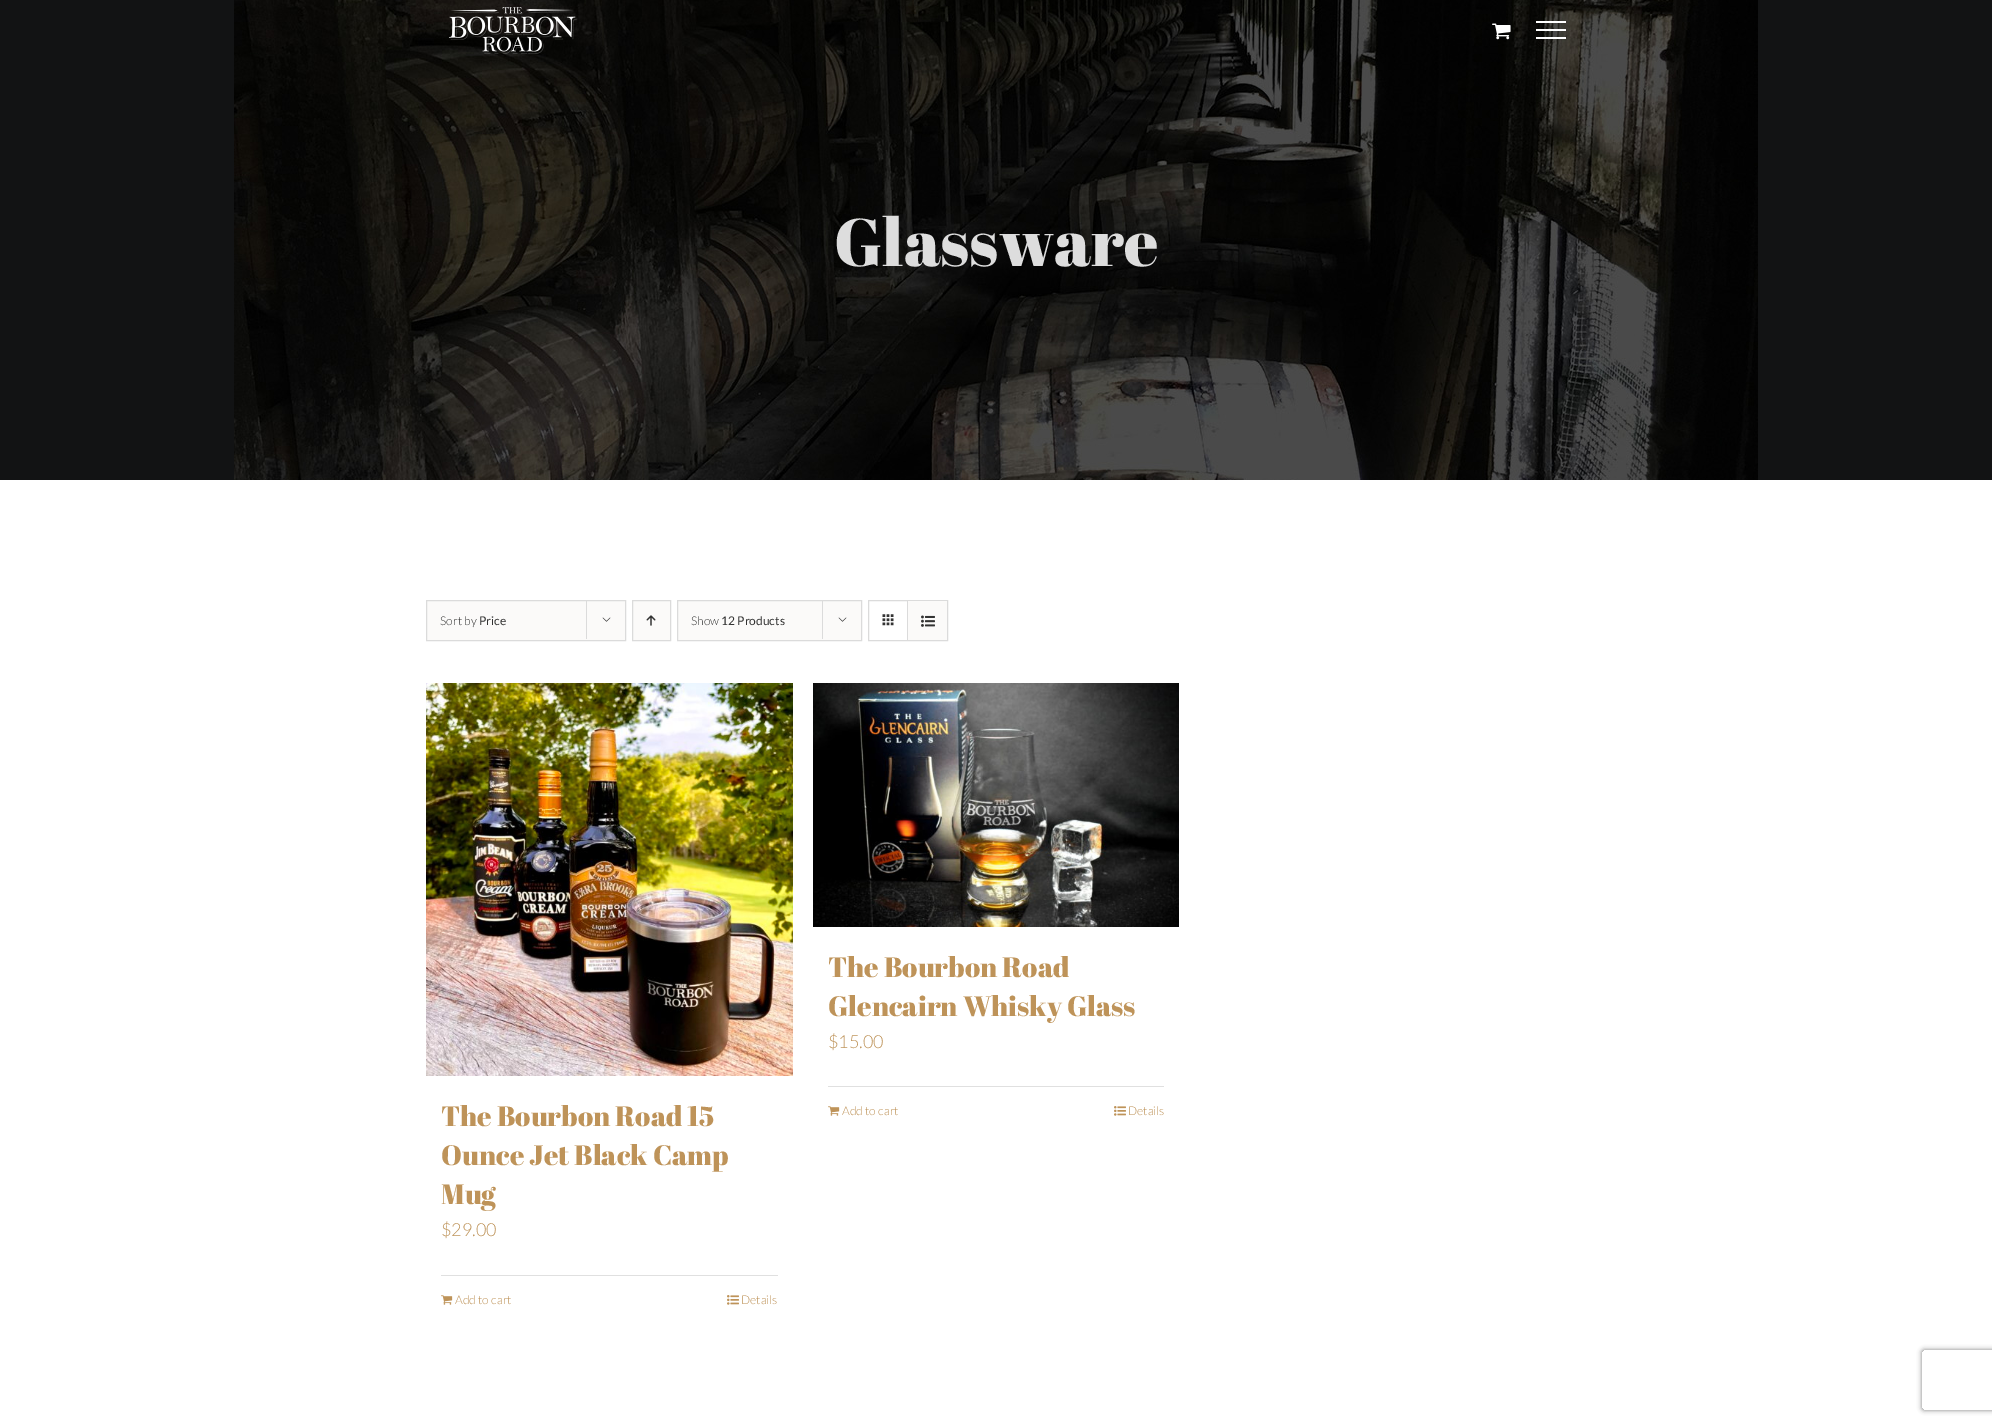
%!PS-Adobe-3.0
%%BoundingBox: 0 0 1992 1424
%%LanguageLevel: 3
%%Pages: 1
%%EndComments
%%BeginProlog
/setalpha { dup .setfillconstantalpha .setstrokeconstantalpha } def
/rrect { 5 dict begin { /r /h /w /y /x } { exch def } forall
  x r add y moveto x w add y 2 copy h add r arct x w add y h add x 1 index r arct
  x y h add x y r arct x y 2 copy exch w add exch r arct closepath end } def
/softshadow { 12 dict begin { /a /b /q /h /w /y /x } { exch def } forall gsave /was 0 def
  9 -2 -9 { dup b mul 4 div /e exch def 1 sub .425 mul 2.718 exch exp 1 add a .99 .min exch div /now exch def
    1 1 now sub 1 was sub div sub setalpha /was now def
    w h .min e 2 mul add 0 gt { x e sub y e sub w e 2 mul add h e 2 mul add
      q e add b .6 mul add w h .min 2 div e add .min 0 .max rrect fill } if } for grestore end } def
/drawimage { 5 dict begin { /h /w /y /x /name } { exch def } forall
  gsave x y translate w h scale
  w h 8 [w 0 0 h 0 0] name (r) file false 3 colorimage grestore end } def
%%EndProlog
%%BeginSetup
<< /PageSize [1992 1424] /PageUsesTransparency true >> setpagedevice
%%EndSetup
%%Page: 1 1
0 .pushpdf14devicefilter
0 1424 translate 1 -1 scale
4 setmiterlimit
1 setgray
0 0 1992 1424 rectfill
0.071 0.075 0.078 setrgbcolor
0 0 1992 480 rectfill
(images/3.raw) 234 0 1524 480 drawimage
(images/1.raw) 449 7 129 47 drawimage
(images/2.raw) 1492 23 19 17 drawimage
1 setgray
1536 21 30 2 rectfill
1536 29 30 2 rectfill
1536 37 30 2 rectfill
0.984 0.98 0.976 setrgbcolor
newpath 426.5 600.5 moveto 625.5 600.5 lineto 625.5 640.5 lineto 426.5 640.5 lineto closepath gsave fill grestore
0.859 setgray
stroke
586 600 1 39 rectfill
(images/4.raw) 602 617 9 5 drawimage
0.984 0.98 0.976 setrgbcolor
newpath 632.5 600.5 moveto 670.5 600.5 lineto 670.5 640.5 lineto 632.5 640.5 lineto closepath gsave fill grestore
0.859 setgray
stroke
(images/5.raw) 646 615 10 11 drawimage
0.984 0.98 0.976 setrgbcolor
newpath 677.5 600.5 moveto 861.5 600.5 lineto 861.5 640.5 lineto 677.5 640.5 lineto closepath gsave fill grestore
0.859 setgray
stroke
822 600 1 39 rectfill
(images/4.raw) 838 617 9 5 drawimage
868.5 600.5 79 40 rectstroke
907 601 1 39 rectfill
(images/6.raw) 882 614 12 12 drawimage
0.984 0.98 0.976 setrgbcolor
908 601 39 39 rectfill
(images/7.raw) 921 615 14 12 drawimage
(images/8.raw) 813 683 366 244 drawimage
0.878 setgray
828 1086 336 1 rectfill
(images/9.raw) 828 1106 12 10 drawimage
(images/10.raw) 1114 1106 12 10 drawimage
(images/11.raw) 426 683 367 393 drawimage
441 1275 337 1 rectfill
(images/9.raw) 441 1295 12 10 drawimage
(images/10.raw) 727 1295 12 10 drawimage
gsave
newpath 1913 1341 moveto 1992 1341 lineto 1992 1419 lineto 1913 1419 lineto closepath 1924 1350 moveto 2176 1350 lineto 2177 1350 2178 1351 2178 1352 curveto 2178 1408 lineto 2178 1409 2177 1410 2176 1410 curveto 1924 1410 lineto 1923 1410 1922 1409 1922 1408 curveto 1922 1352 lineto 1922 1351 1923 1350 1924 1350 curveto closepath eoclip newpath
0.502 setgray
1922 1350 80 60 2 2.5 1 softshadow
grestore
/AbrilFatface-Regular [67 0 0 -67 0 0] selectfont
0.867 setgray
834 266 moveto (Glassware) show
/Lato-Light [12 0 0 -12 0 0] selectfont
0.2 setgray
440 625 moveto (Sort by) show
/Lato-Regular [12 0 0 -12 0 0] selectfont
479 625 moveto (Price) show
/Lato-Light [12 0 0 -12 0 0] selectfont
691 625 moveto (Show) show
/Lato-Regular [12 0 0 -12 0 0] selectfont
721 625 moveto (12 Products) show
/AbrilFatface-Regular [28 0 0 -28 0 0] selectfont
0.745 0.576 0.349 setrgbcolor
828 977 moveto (The Bourbon Road) show
828 1016 moveto (Glencairn Whisky Glass) show
/Lato-Light [18 0 0 -18 0 0] selectfont
828 1048 moveto ($15.00) show
/Lato-Light [12 0 0 -12 0 0] selectfont
842 1115 moveto (Add to cart) show
1128 1115 moveto (Details) show
/AbrilFatface-Regular [28 0 0 -28 0 0] selectfont
441 1126 moveto (The Bourbon Road 15) show
441 1165 moveto (Ounce Jet Black Camp) show
441 1204 moveto (Mug) show
/Lato-Light [18 0 0 -18 0 0] selectfont
441 1236 moveto ($29.00) show
/Lato-Light [12 0 0 -12 0 0] selectfont
455 1304 moveto (Add to cart) show
741 1304 moveto (Details) show
.poppdf14devicefilter showpage
%%EOF
